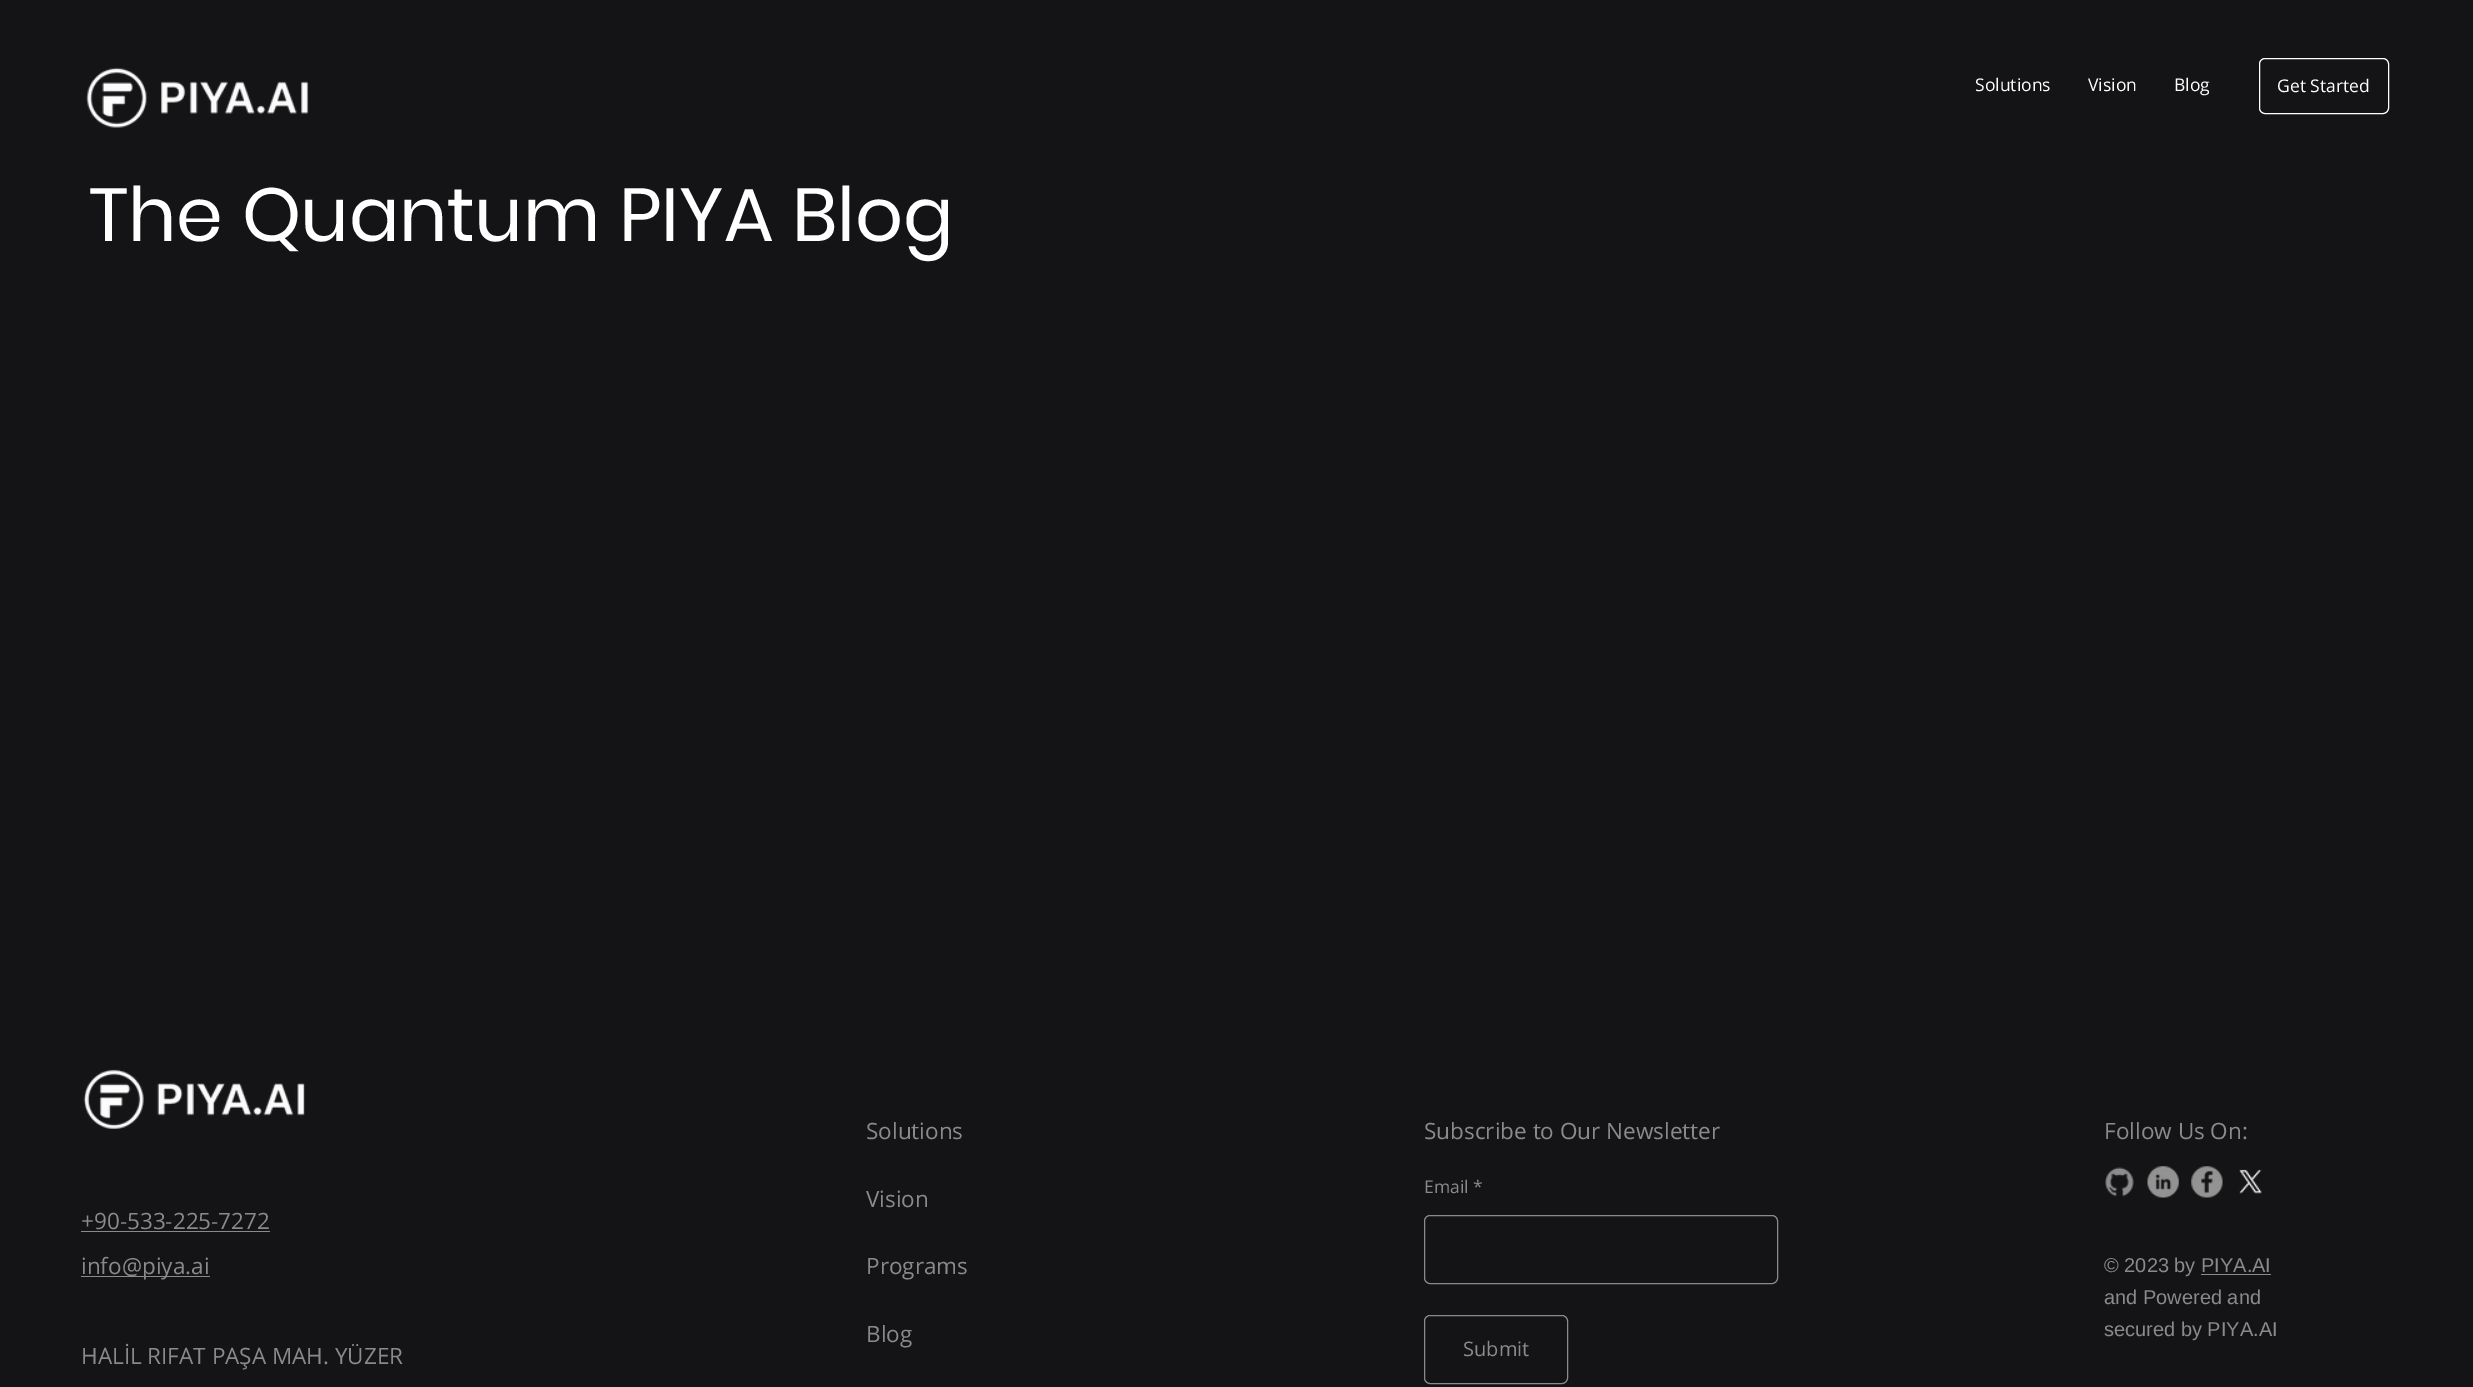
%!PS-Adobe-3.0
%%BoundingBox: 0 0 2473 1387
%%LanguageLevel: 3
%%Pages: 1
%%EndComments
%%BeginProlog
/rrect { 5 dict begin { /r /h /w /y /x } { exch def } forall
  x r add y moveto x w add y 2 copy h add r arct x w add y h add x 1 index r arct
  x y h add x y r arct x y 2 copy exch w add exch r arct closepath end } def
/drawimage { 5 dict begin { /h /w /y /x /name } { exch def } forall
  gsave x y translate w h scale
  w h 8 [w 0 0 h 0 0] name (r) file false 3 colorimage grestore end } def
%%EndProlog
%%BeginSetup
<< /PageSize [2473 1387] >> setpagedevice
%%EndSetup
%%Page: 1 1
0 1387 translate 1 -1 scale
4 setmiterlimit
0.078 0.078 0.086 setrgbcolor
0 0 2473 1387 rectfill
(images/1.raw) 86 67 223 61 drawimage
1 setgray
2259.5 58.5 129 55 5.5 rrect stroke
(images/2.raw) 83 1069 222 60 drawimage
0.541 setgray
81 1231 189 1 rectfill
81 1276 129 1 rectfill
1424.5 1215.5 353 68 5.5 rrect stroke
1424.5 1315.5 143 68 5.5 rrect stroke
(images/3.raw) 2105 1167 29 30 drawimage
(images/4.raw) 2147 1166 32 32 drawimage
(images/5.raw) 2191 1166 32 32 drawimage
(images/6.raw) 2239 1169 23 25 drawimage
2201 1274 70 1 rectfill
/OpenSans-Regular [17.5 0 0 -17.5 0 0] selectfont
1 setgray
1975 91 moveto (Solutions) show
2088 91 moveto (Vision) show
2174 91 moveto (Blog) show
2277 92 moveto (Get Started) show
/Poppins-Regular [75 0 0 -75 0 0] selectfont
89 241 moveto (The Quantum PIYA Blog) show
/OpenSans-Regular [22.5 0 0 -22.5 0 0] selectfont
0.541 setgray
81 1229 moveto (+90-533-225-7272) show
81 1274 moveto (info@piya.ai) show
81 1364 moveto (HALİL RIFAT PAŞA MAH. YÜZER) show
866 1139 moveto (Solutions) show
866 1207 moveto (Vision) show
866 1274 moveto (Programs) show
866 1342 moveto (Blog) show
1424 1139 moveto (Subscribe to Our Newsletter) show
/OpenSans-Regular [17.5 0 0 -17.5 0 0] selectfont
1424 1193 moveto (Email *) show
/OpenSans-Regular [20 0 0 -20 0 0] selectfont
1463 1356 moveto (Submit) show
/OpenSans-Regular [22.5 0 0 -22.5 0 0] selectfont
2104 1139 moveto (Follow Us On:) show
/LiberationSans-Regular [20 0 0 -20 0 0] selectfont
2104 1272 moveto (© 2023 by PIYA.AI) show
2104 1304 moveto (and Powered and) show
2104 1336 moveto (secured by PIYA.AI) show
showpage
%%EOF
